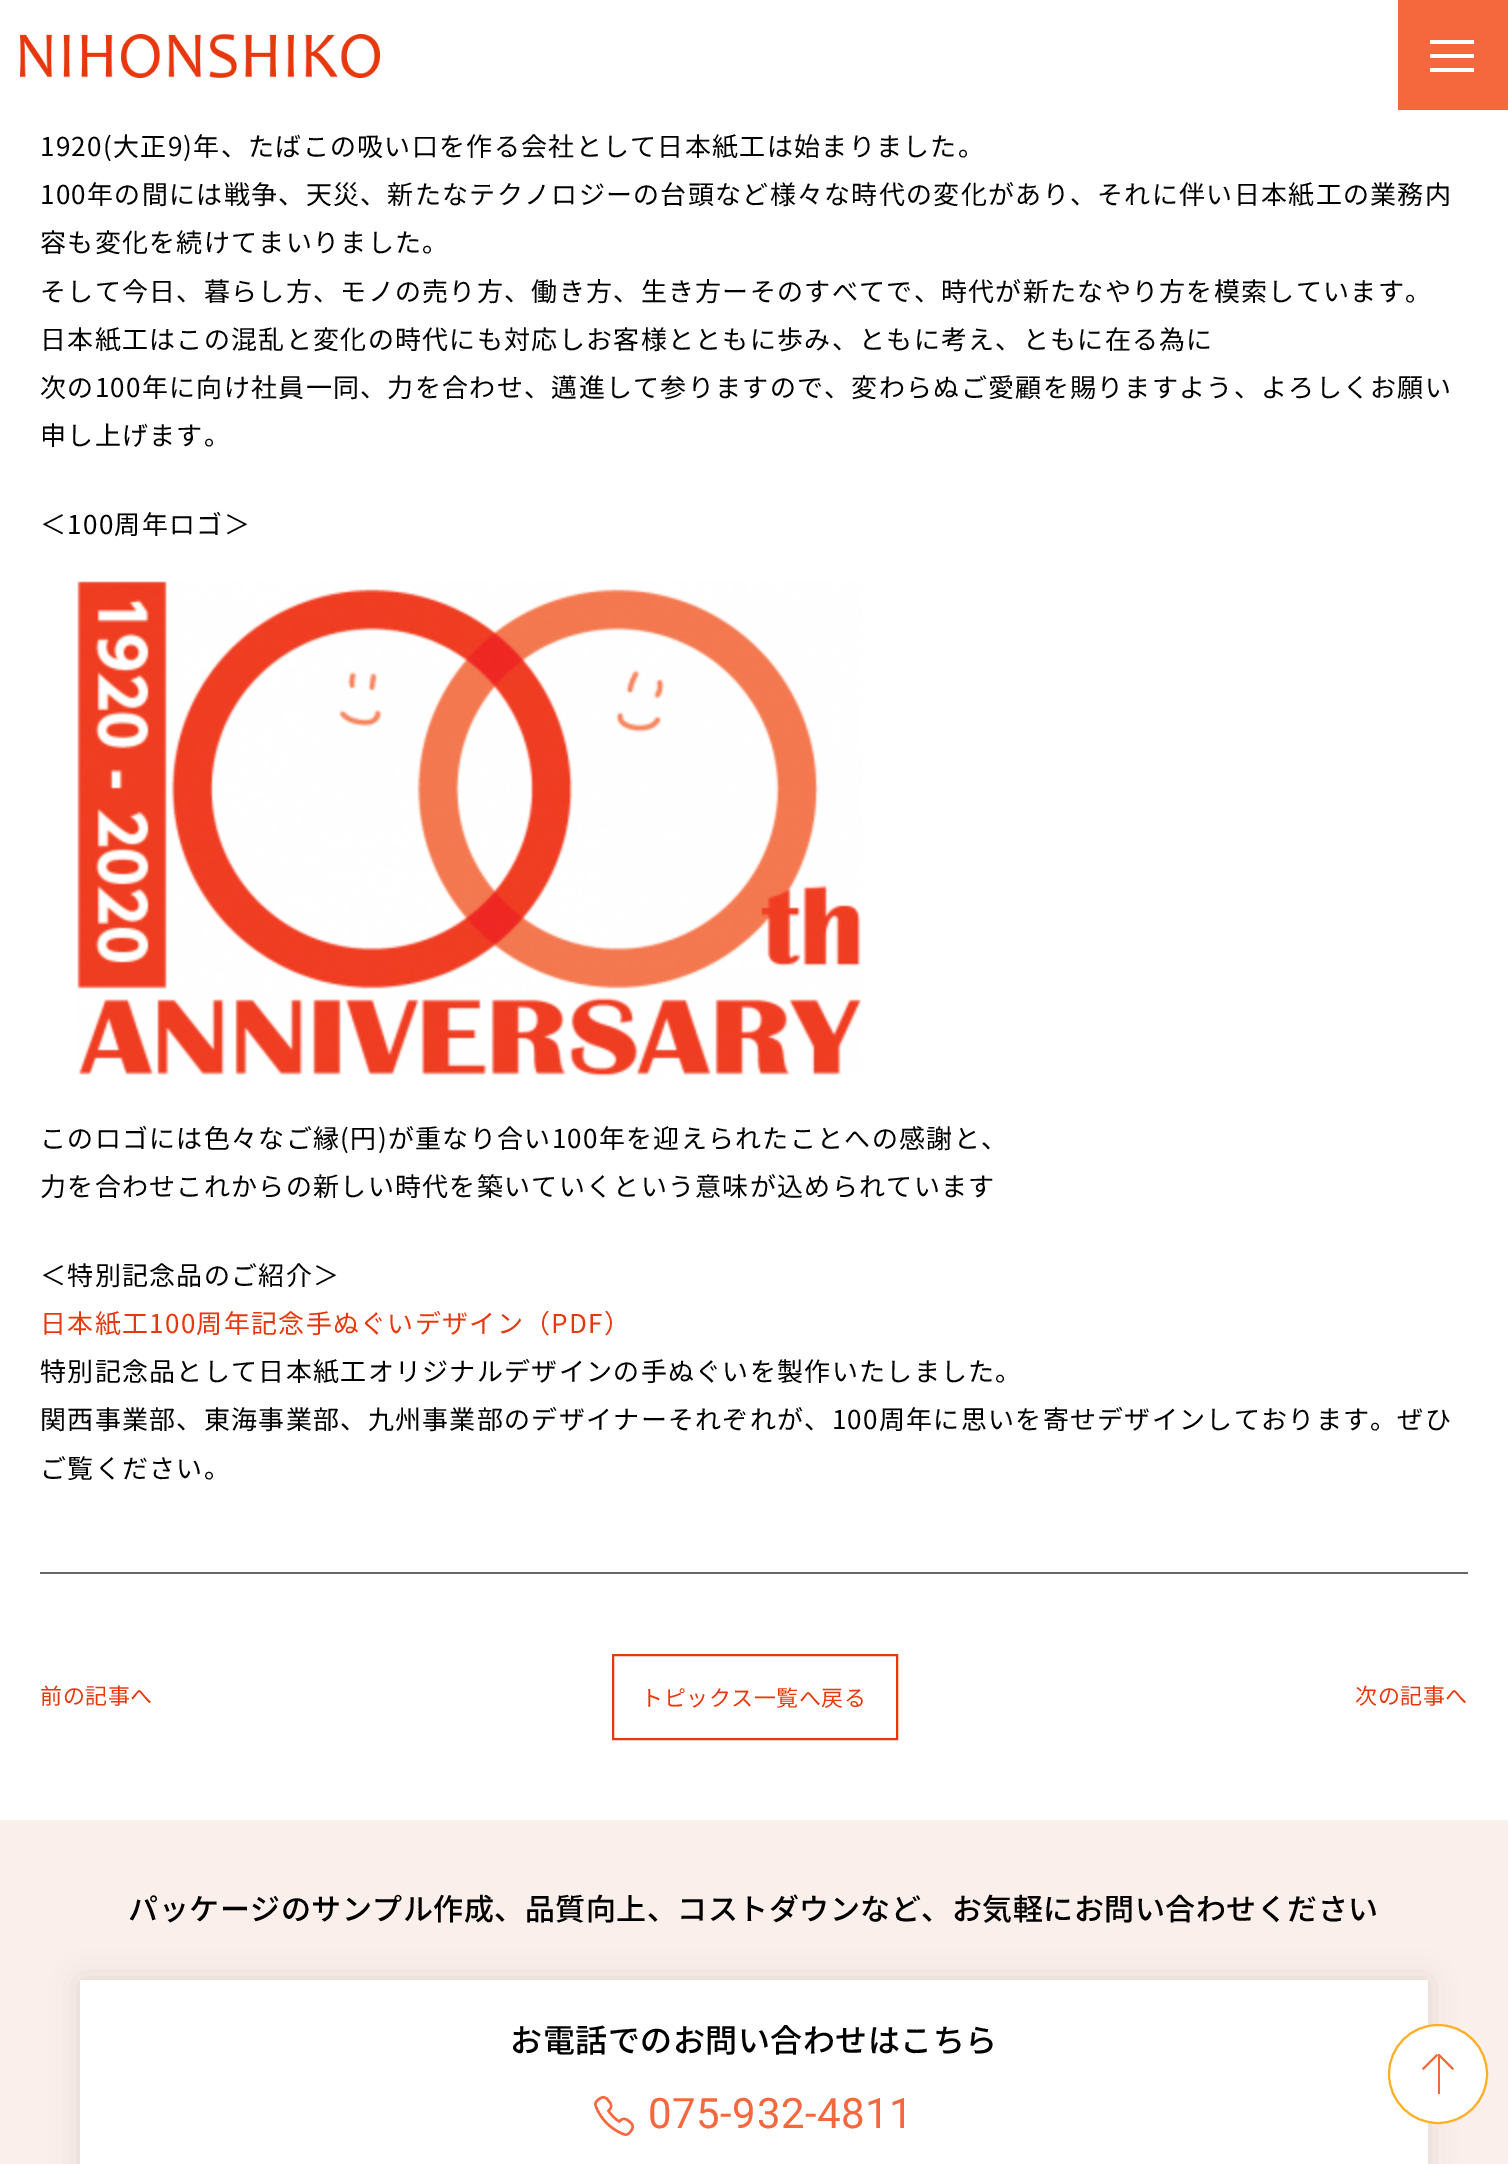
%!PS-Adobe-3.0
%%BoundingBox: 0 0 1508 2164
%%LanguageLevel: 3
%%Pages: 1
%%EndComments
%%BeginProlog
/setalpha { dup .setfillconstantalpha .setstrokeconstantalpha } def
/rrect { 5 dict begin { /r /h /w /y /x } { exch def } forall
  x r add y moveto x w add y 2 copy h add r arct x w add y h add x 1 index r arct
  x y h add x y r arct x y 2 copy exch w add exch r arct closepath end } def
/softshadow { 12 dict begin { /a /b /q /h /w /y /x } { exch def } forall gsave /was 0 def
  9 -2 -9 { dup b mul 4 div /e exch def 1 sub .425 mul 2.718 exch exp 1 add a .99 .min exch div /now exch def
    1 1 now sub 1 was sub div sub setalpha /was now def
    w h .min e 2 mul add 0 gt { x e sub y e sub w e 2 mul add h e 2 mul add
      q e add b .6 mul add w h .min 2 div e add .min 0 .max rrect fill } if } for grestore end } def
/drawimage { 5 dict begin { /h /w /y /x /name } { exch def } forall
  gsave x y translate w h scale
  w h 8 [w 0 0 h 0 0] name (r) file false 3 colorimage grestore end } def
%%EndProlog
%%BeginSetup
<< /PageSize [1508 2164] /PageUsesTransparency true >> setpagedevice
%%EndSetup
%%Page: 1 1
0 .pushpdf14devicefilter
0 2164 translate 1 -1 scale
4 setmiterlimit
1 setgray
0 0 1508 2164 rectfill
(images/1.raw) 20 34 360 44 drawimage
0.961 0.404 0.235 setrgbcolor
1398 0 110 110 rectfill
1 setgray
1430 40 44 4 rectfill
1430 54 44 4 rectfill
1430 68 44 4 rectfill
(images/2.raw) 77 581 785 496 drawimage
0.4 setgray
40 1572 1428 2 rectfill
0.906 0.22 0.051 setrgbcolor
2 setlinewidth
613 1655 284 84 rectstroke
0.984 0.937 0.922 setrgbcolor
0 1820 1508 344 rectfill
0 setgray
80 1980 1348 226 0 14 0.1 softshadow
1 setgray
80 1980 1348 184 rectfill
(images/3.raw) 594 2096 40 40 drawimage
newpath 1438 2074 49 0 360 arc closepath gsave fill grestore
1 0.682 0.153 setrgbcolor
stroke
0.961 0.404 0.235 setrgbcolor
1438 2054 2 40 rectfill
newpath 1436.5 2054 moveto 1438 2055.5 lineto 1423.5 2070 lineto 1422 2068.5 lineto closepath 1438 2055.5 moveto 1439.5 2054 lineto 1454 2068.5 lineto 1452.5 2070 lineto closepath fill
/NotoSansJP-Regular [26 0 0 -26 0 0] selectfont
0 setgray
40 156 moveto 1.3 0 (1920\(大正9\)年、たばこの吸い口を作る会社として日本紙工は始まりました。) ashow
40 204 moveto 1.3 0 (100年の間には戦争、天災、新たなテクノロジーの台頭など様々な時代の変化があり、それに伴い日本紙工の業務内) ashow
40 252 moveto 1.3 0 (容も変化を続けてまいりました。) ashow
40 301 moveto 1.3 0 (そして今日、暮らし方、モノの売り方、働き方、生き方ーそのすべてで、時代が新たなやり方を模索しています。) ashow
40 349 moveto 1.3 0 (日本紙工はこの混乱と変化の時代にも対応しお客様とともに歩み、ともに考え、ともに在る為に) ashow
40 397 moveto 1.3 0 (次の100年に向け社員一同、力を合わせ、邁進して参りますので、変わらぬご愛顧を賜りますよう、よろしくお願い) ashow
40 445 moveto 1.3 0 (申し上げます。) ashow
40 534 moveto 1.3 0 (＜100周年ロゴ＞) ashow
40 1148 moveto 1.3 0 (このロゴには色々なご縁\(円\)が重なり合い100年を迎えられたことへの感謝と、) ashow
40 1196 moveto 1.3 0 (力を合わせこれからの新しい時代を築いていくという意味が込められています) ashow
40 1285 moveto 1.3 0 (＜特別記念品のご紹介＞) ashow
0.906 0.22 0.051 setrgbcolor
40 1333 moveto 1.3 0 (日本紙工100周年記念手ぬぐいデザイン（PDF）) ashow
0 setgray
40 1381 moveto 1.3 0 (特別記念品として日本紙工オリジナルデザインの手ぬぐいを製作いたしました。) ashow
40 1429 moveto 1.3 0 (関西事業部、東海事業部、九州事業部のデザイナーそれぞれが、100周年に思いを寄せデザインしております。ぜひ) ashow
40 1478 moveto 1.3 0 (ご覧ください。) ashow
/NotoSansJP-Regular [22 0 0 -22 0 0] selectfont
0.906 0.22 0.051 setrgbcolor
40 1704 moveto 0.5 0 (前の記事へ) ashow
1355 1704 moveto 0.5 0 (次の記事へ) ashow
641 1706 moveto 0.5 0 (トピックス一覧へ戻る) ashow
/NotoSansJP-Medium [30 0 0 -30 0 0] selectfont
0 setgray
128 1920 moveto 0.5 0 (パッケージのサンプル作成、品質向上、コストダウンなど、お気軽にお問い合わせください) ashow
/NotoSansJP-Medium [32 0 0 -32 0 0] selectfont
510 2052 moveto 0.5 0 (お電話でのお問い合わせはこちら) ashow
/Roboto-Regular [42 0 0 -42 0 0] selectfont
0.961 0.404 0.235 setrgbcolor
648 2128 moveto 0.5 0 (075-932-4811) ashow
.poppdf14devicefilter showpage
%%EOF
